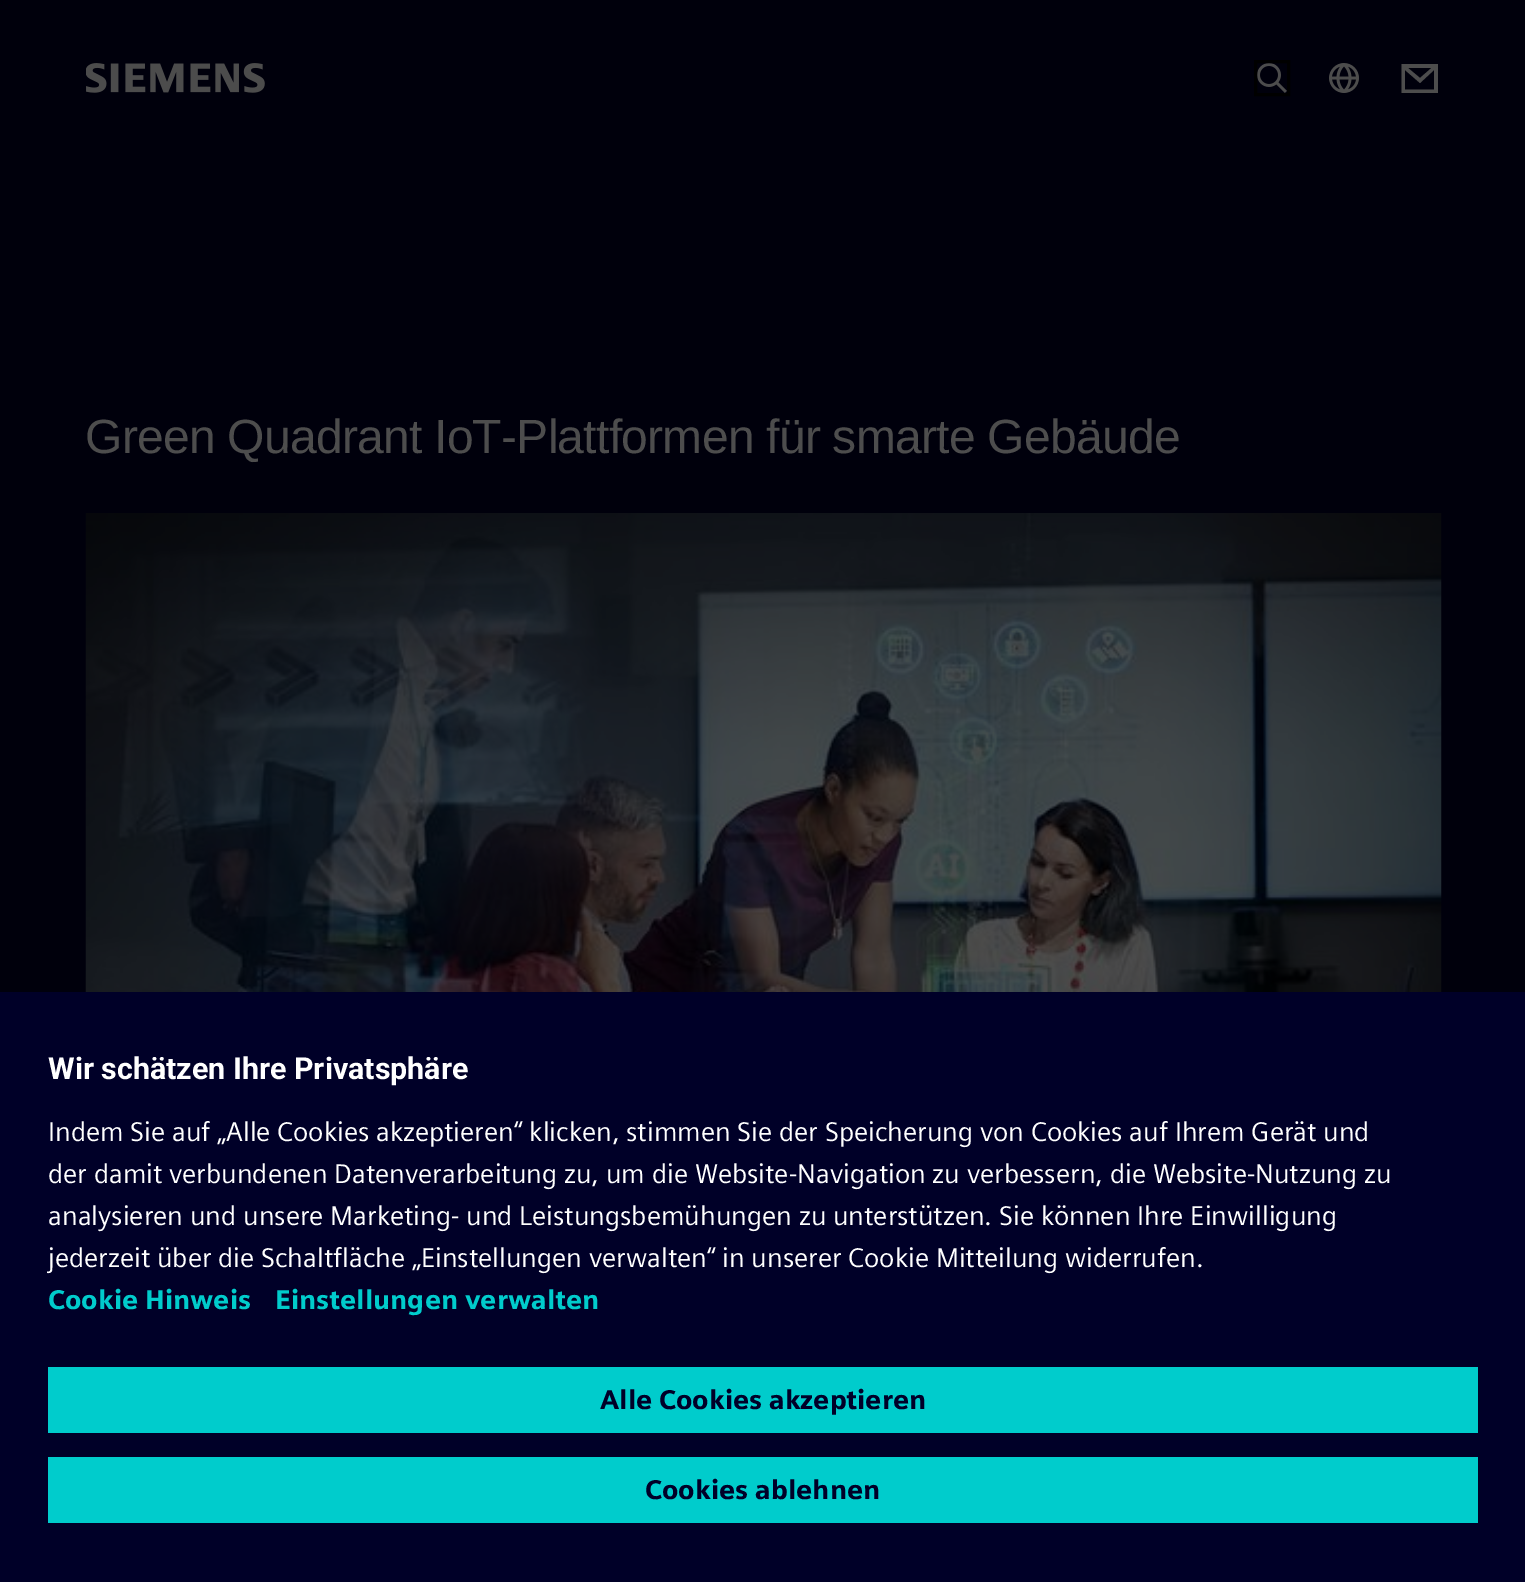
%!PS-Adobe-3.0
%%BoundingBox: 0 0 1525 1582
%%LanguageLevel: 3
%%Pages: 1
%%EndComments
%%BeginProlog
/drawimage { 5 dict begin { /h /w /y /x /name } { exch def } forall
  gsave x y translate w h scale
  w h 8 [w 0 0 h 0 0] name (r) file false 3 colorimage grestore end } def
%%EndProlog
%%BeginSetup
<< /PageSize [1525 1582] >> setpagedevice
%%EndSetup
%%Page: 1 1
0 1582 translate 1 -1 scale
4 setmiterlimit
0 0 0.047 setrgbcolor
0 0 1525 1582 rectfill
(images/1.raw) 86 63 179 30 drawimage
(images/2.raw) 1257 63 30 30 drawimage
0 setgray
3 setlinewidth
1255.5 61.5 33 33 rectstroke
(images/3.raw) 1329 63 30 30 drawimage
0.302 setgray
newpath 1401.5 64 moveto 1401.5 93 lineto 1438 93 lineto 1438 64 lineto closepath 1431.5 68 moveto 1420 78 lineto 1408 68 lineto closepath 1405 70 moveto 1405 89.5 lineto 1434 89.5 lineto 1434 70 lineto 1420 83 lineto closepath eofill
(images/4.raw) 85 513 1357 479 drawimage
0 0 0.157 setrgbcolor
0 992 1525 590 rectfill
0 0.8 0.8 setrgbcolor
48 1367 1430 66 rectfill
48 1457 1430 66 rectfill
/LiberationSans-Regular [48 0 0 -48 0 0] selectfont
0.302 setgray
85 453 moveto -0.75 0 (Green Quadrant IoT-Plattformen für smarte Gebäude) ashow
/Roboto-Bold [30.4 0 0 -30.4 0 0] selectfont
1 setgray
48 1079 moveto (Wir schätzen Ihre Privatsphäre) show
/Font-Regular [27 0 0 -27 0 0] selectfont
48 1141 moveto (Indem Sie auf „Alle Cookies akzeptieren“ klicken, stimmen Sie der Speicherung von Cookies auf Ihrem Gerät und) show
48 1183 moveto (der damit verbundenen Datenverarbeitung zu, um die Website-Navigation zu verbessern, die Website-Nutzung zu) show
48 1225 moveto (analysieren und unsere Marketing- und Leistungsbemühungen zu unterstützen. Sie können Ihre Einwilligung) show
48 1267 moveto (jederzeit über die Schaltfläche „Einstellungen verwalten“ in unserer Cookie Mitteilung widerrufen.) show
/Font-Bold [27 0 0 -27 0 0] selectfont
0 0.8 0.8 setrgbcolor
48 1309 moveto (Cookie Hinweis) show
275 1309 moveto (Einstellungen verwalten) show
0 0 0.157 setrgbcolor
600 1409 moveto (Alle Cookies akzeptieren) show
645 1499 moveto (Cookies ablehnen) show
showpage
%%EOF
